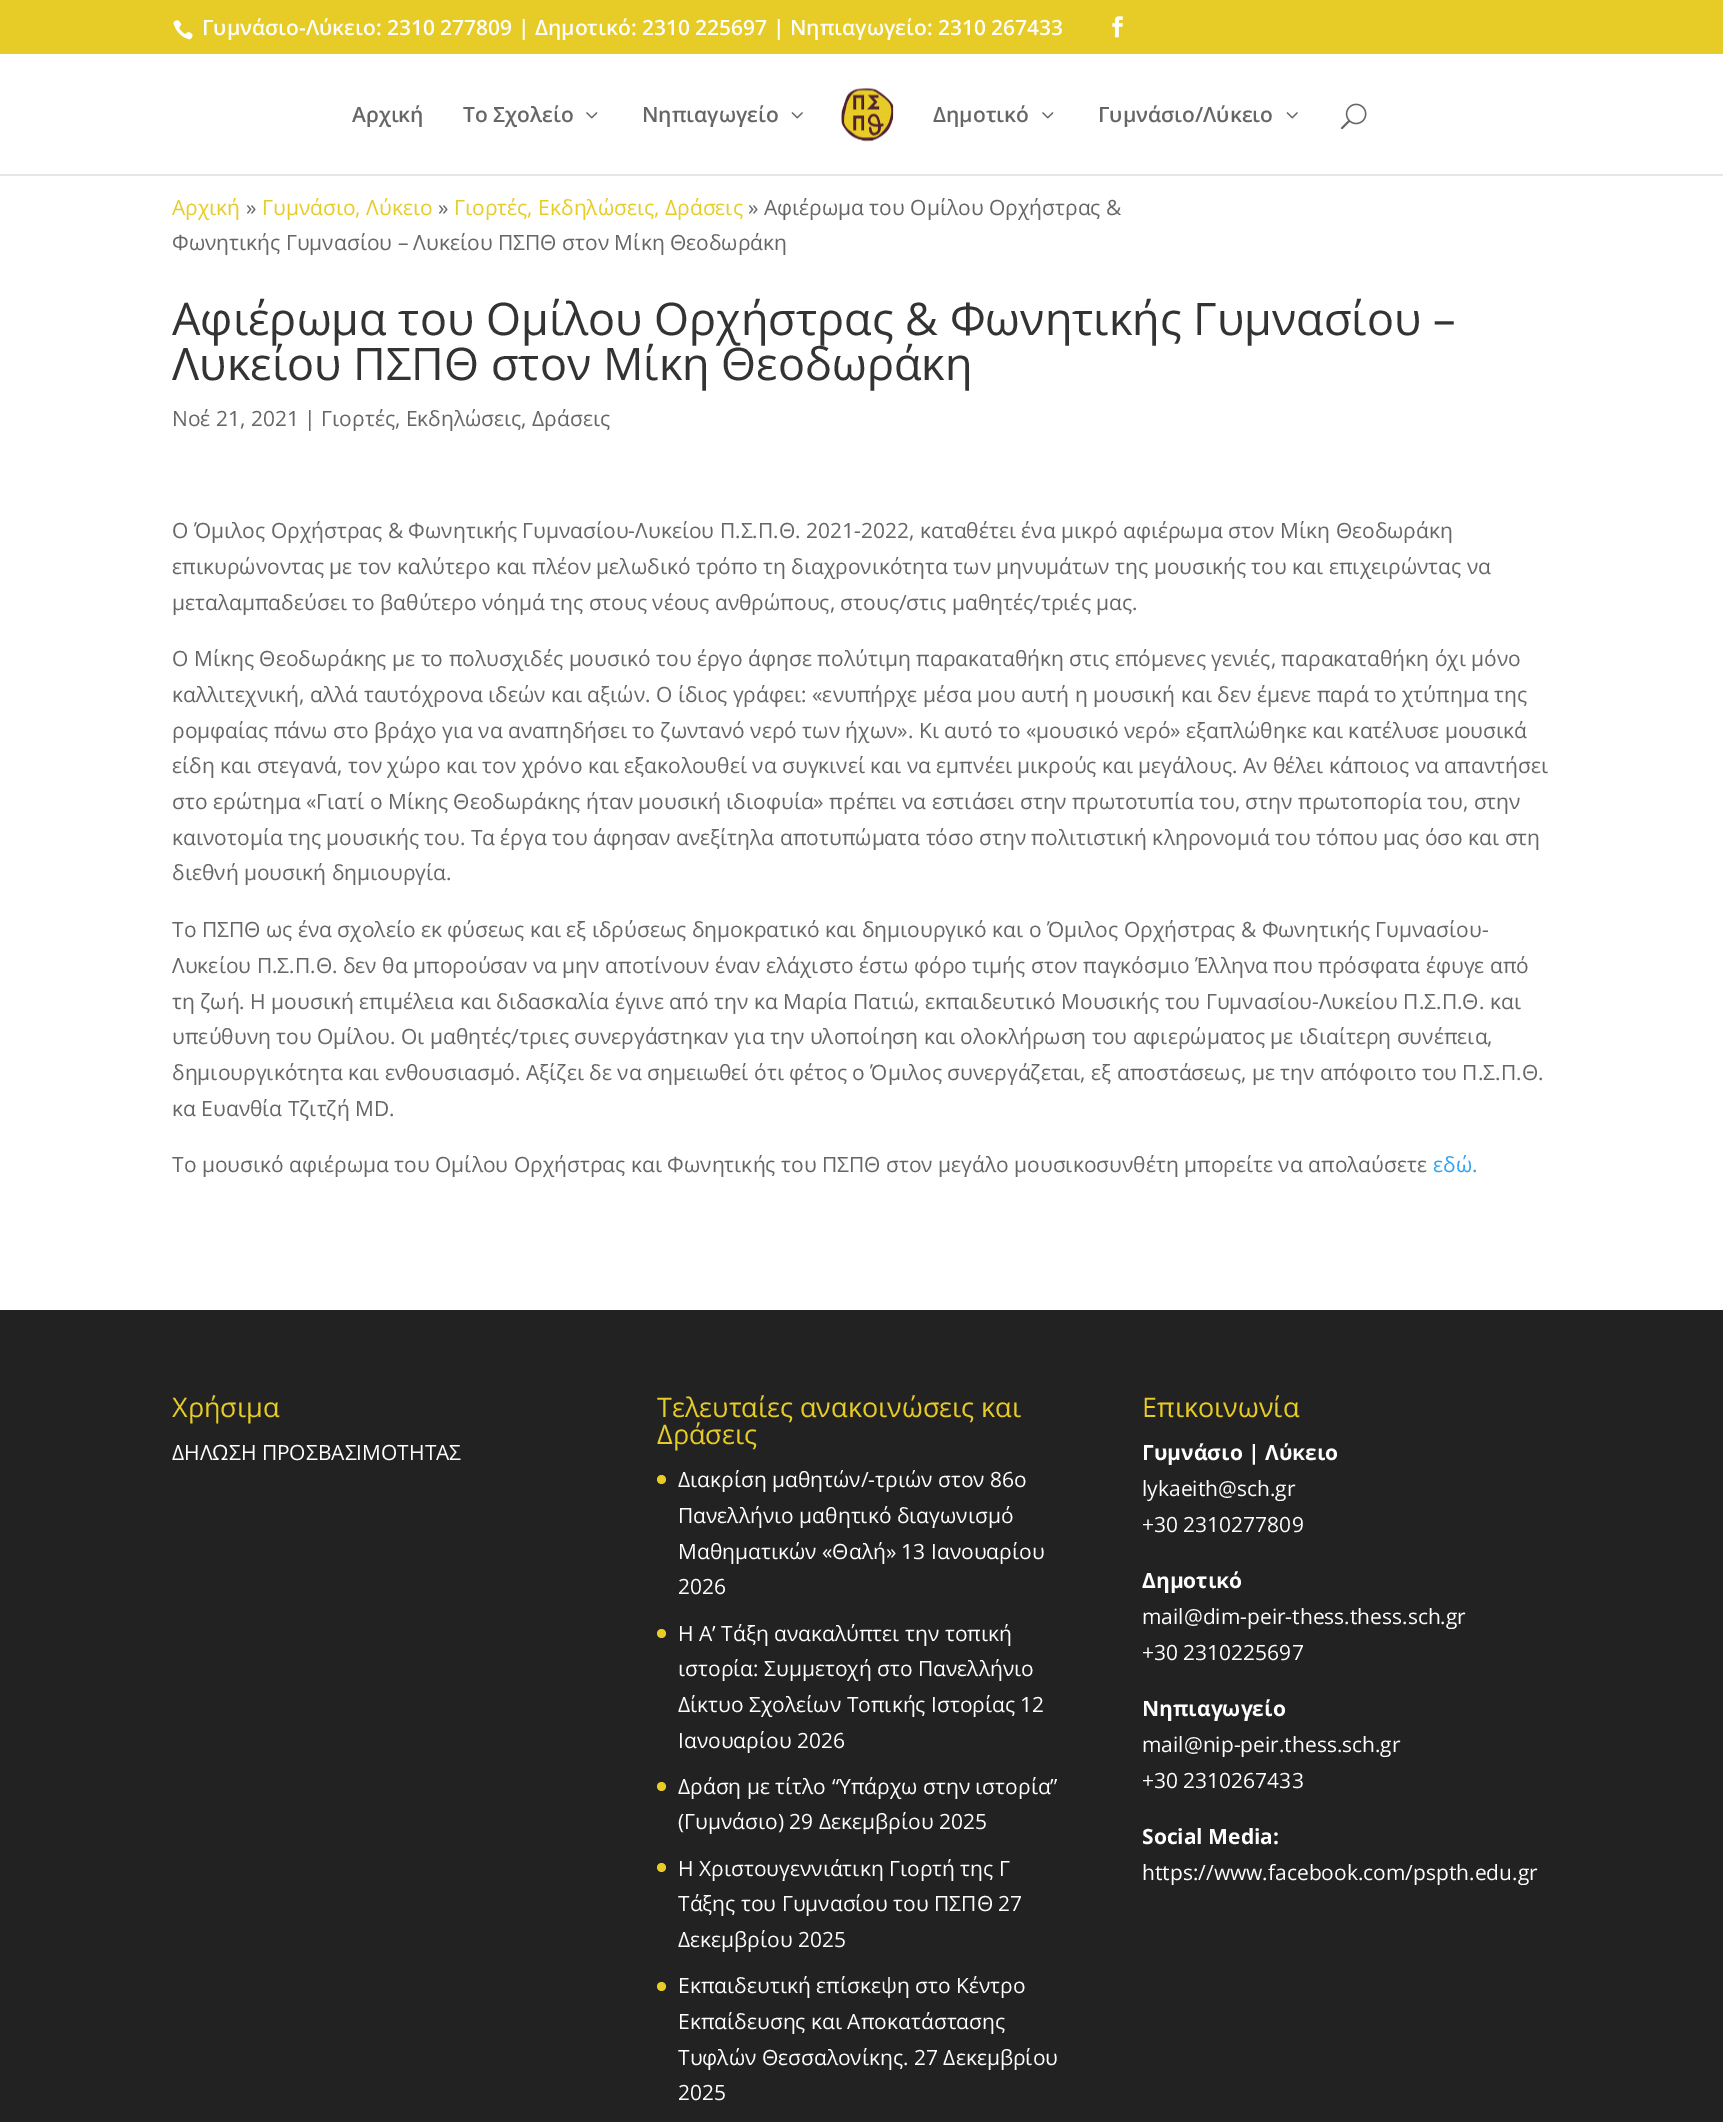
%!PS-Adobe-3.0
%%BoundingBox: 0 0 1723 2122
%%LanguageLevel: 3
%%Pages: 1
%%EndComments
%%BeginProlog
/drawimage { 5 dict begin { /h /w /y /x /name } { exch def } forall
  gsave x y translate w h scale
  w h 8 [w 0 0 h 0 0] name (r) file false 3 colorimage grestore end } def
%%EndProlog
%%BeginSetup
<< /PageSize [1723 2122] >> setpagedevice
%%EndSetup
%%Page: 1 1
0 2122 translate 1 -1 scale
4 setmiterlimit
1 setgray
0 0 1723 2122 rectfill
0.906 0.796 0.149 setrgbcolor
0 0 1723 54 rectfill
(images/1.raw) 173 20 20 20 drawimage
(images/2.raw) 1112 16 11 22 drawimage
0.902 setgray
newpath 0 174 moveto 0 176 lineto 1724 176 lineto 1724 56 lineto 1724 174 lineto closepath fill
(images/3.raw) 586 112 12 7 drawimage
(images/4.raw) 791 112 12 7 drawimage
(images/5.raw) 841 88 53 54 drawimage
(images/3.raw) 1042 112 12 7 drawimage
(images/4.raw) 1286 112 12 7 drawimage
(images/6.raw) 1340 103 27 27 drawimage
0.133 setgray
0 1310 1723 812 rectfill
0.906 0.796 0.149 setrgbcolor
newpath 661.5 1479.5 4.5 0 360 arc closepath fill
newpath 661.5 1633.5 4.5 0 360 arc closepath fill
newpath 661.5 1786.5 4.5 0 360 arc closepath fill
newpath 661.5 1867.5 4.5 0 360 arc closepath fill
newpath 661.5 1986.5 4.5 0 360 arc closepath fill
/OpenSans-SemiBold [21 0 0 -21 0 0] selectfont
1 setgray
202 35 moveto (Γυμνάσιο-Λύκειο: 2310 277809 | Δημοτικό: 2310 225697 | Νηπιαγωγείο: 2310 267433) show
0.4 setgray
352 122 moveto (Αρχική) show
463 122 moveto (Το Σχολείο) show
642 122 moveto (Νηπιαγωγείο) show
933 122 moveto (Δημοτικό) show
1098 122 moveto (Γυμνάσιο/Λύκειο) show
/OpenSans-Regular [21 0 0 -21 0 0] selectfont
0.906 0.796 0.149 setrgbcolor
172 215 moveto (Αρχική) show
0.4 setgray
246 215 moveto (») show
0.906 0.796 0.149 setrgbcolor
262 215 moveto (Γυμνάσιο, Λύκειο) show
0.4 setgray
438 215 moveto (») show
0.906 0.796 0.149 setrgbcolor
454 215 moveto (Γιορτές, Εκδηλώσεις, Δράσεις) show
0.4 setgray
748 215 moveto (» Αφιέρωμα του Ομίλου Ορχήστρας &) show
172 250 moveto (Φωνητικής Γυμνασίου – Λυκείου ΠΣΠΘ στον Μίκη Θεοδωράκη) show
/OpenSans-Regular [45 0 0 -45 0 0] selectfont
0.2 setgray
172 335 moveto (Αφιέρωμα του Ομίλου Ορχήστρας & Φωνητικής Γυμνασίου –) show
172 380 moveto (Λυκείου ΠΣΠΘ στον Μίκη Θεοδωράκη) show
/OpenSans-Regular [21 0 0 -21 0 0] selectfont
0.4 setgray
172 426 moveto (Νοέ 21, 2021 | Γιορτές, Εκδηλώσεις, Δράσεις) show
172 538 moveto (Ο Όμιλος Ορχήστρας & Φωνητικής Γυμνασίου-Λυκείου Π.Σ.Π.Θ. 2021-2022, καταθέτει ένα μικρό αφιέρωμα στον Μίκη Θεοδωράκη) show
172 574 moveto (επικυρώνοντας με τον καλύτερο και πλέον μελωδικό τρόπο τη διαχρονικότητα των μηνυμάτων της μουσικής του και επιχειρώντας να) show
172 610 moveto (μεταλαμπαδεύσει το βαθύτερο νόημά της στους νέους ανθρώπους, στους/στις μαθητές/τριές μας.) show
172 666 moveto (Ο Μίκης Θεοδωράκης με το πολυσχιδές μουσικό του έργο άφησε πολύτιμη παρακαταθήκη στις επόμενες γενιές, παρακαταθήκη όχι μόνο) show
172 702 moveto (καλλιτεχνική, αλλά ταυτόχρονα ιδεών και αξιών. Ο ίδιος γράφει: «ενυπήρχε μέσα μου αυτή η μουσική και δεν έμενε παρά το χτύπημα της) show
172 738 moveto (ρομφαίας πάνω στο βράχο για να αναπηδήσει το ζωντανό νερό των ήχων». Κι αυτό το «μουσικό νερό» εξαπλώθηκε και κατέλυσε μουσικά) show
172 773 moveto (είδη και στεγανά, τον χώρο και τον χρόνο και εξακολουθεί να συγκινεί και να εμπνέει μικρούς και μεγάλους. Αν θέλει κάποιος να απαντήσει) show
172 809 moveto (στο ερώτημα «Γιατί ο Μίκης Θεοδωράκης ήταν μουσική ιδιοφυία» πρέπει να εστιάσει στην πρωτοτυπία του, στην πρωτοπορία του, στην) show
172 845 moveto (καινοτομία της μουσικής του. Τα έργα του άφησαν ανεξίτηλα αποτυπώματα τόσο στην πολιτιστική κληρονομιά του τόπου μας όσο και στη) show
172 880 moveto (διεθνή μουσική δημιουργία.) show
172 937 moveto (Το ΠΣΠΘ ως ένα σχολείο εκ φύσεως και εξ ιδρύσεως δημοκρατικό και δημιουργικό και ο Όμιλος Ορχήστρας & Φωνητικής Γυμνασίου-) show
172 973 moveto (Λυκείου Π.Σ.Π.Θ. δεν θα μπορούσαν να μην αποτίνουν έναν ελάχιστο έστω φόρο τιμής στον παγκόσμιο Έλληνα που πρόσφατα έφυγε από) show
172 1009 moveto (τη ζωή. Η μουσική επιμέλεια και διδασκαλία έγινε από την κα Μαρία Πατιώ, εκπαιδευτικό Μουσικής του Γυμνασίου-Λυκείου Π.Σ.Π.Θ. και) show
172 1044 moveto (υπεύθυνη του Ομίλου. Οι μαθητές/τριες συνεργάστηκαν για την υλοποίηση και ολοκλήρωση του αφιερώματος με ιδιαίτερη συνέπεια,) show
172 1080 moveto (δημιουργικότητα και ενθουσιασμό. Αξίζει δε να σημειωθεί ότι φέτος ο Όμιλος συνεργάζεται, εξ αποστάσεως, με την απόφοιτο του Π.Σ.Π.Θ.) show
172 1116 moveto (κα Ευανθία Τζιτζή MD.) show
172 1172 moveto (Το μουσικό αφιέρωμα του Ομίλου Ορχήστρας και Φωνητικής του ΠΣΠΘ στον μεγάλο μουσικοσυνθέτη μπορείτε να απολαύσετε) show
0.18 0.639 0.949 setrgbcolor
1433 1172 moveto (εδώ.) show
/OpenSans-Regular [27 0 0 -27 0 0] selectfont
0.906 0.796 0.149 setrgbcolor
172 1417 moveto (Χρήσιμα) show
/OpenSans-Regular [21 0 0 -21 0 0] selectfont
1 setgray
172 1460 moveto (ΔΗΛΩΣΗ ΠΡΟΣΒΑΣΙΜΟΤΗΤΑΣ) show
/OpenSans-Regular [27 0 0 -27 0 0] selectfont
0.906 0.796 0.149 setrgbcolor
657 1417 moveto (Τελευταίες ανακοινώσεις και) show
657 1444 moveto (Δράσεις) show
/OpenSans-Regular [21 0 0 -21 0 0] selectfont
1 setgray
678 1487 moveto (Διακρίση μαθητών/-τριών στον 86ο) show
678 1523 moveto (Πανελλήνιο μαθητικό διαγωνισμό) show
678 1559 moveto (Μαθηματικών «Θαλή» 13 Ιανουαρίου) show
678 1594 moveto (2026) show
678 1641 moveto (Η Α’ Τάξη ανακαλύπτει την τοπική) show
678 1676 moveto (ιστορία: Συμμετοχή στο Πανελλήνιο) show
678 1712 moveto (Δίκτυο Σχολείων Τοπικής Ιστορίας 12) show
678 1748 moveto (Ιανουαρίου 2026) show
678 1794 moveto (Δράση με τίτλο “Υπάρχω στην ιστορία”) show
678 1829 moveto (\(Γυμνάσιο\) 29 Δεκεμβρίου 2025) show
678 1876 moveto (Η Χριστουγεννιάτικη Γιορτή της Γ) show
678 1911 moveto (Τάξης του Γυμνασίου του ΠΣΠΘ 27) show
678 1947 moveto (Δεκεμβρίου 2025) show
678 1993 moveto (Εκπαιδευτική επίσκεψη στο Κέντρο) show
678 2029 moveto (Εκπαίδευσης και Αποκατάστασης) show
678 2065 moveto (Τυφλών Θεσσαλονίκης. 27 Δεκεμβρίου) show
678 2100 moveto (2025) show
/OpenSans-Regular [27 0 0 -27 0 0] selectfont
0.906 0.796 0.149 setrgbcolor
1142 1417 moveto (Επικοινωνία) show
/OpenSans-Bold [21 0 0 -21 0 0] selectfont
1 setgray
1142 1460 moveto (Γυμνάσιο | Λύκειο) show
/OpenSans-Regular [21 0 0 -21 0 0] selectfont
1142 1496 moveto (lykaeith@sch.gr) show
1142 1532 moveto (+30 2310277809) show
/OpenSans-Bold [21 0 0 -21 0 0] selectfont
1142 1588 moveto (Δημοτικό) show
/OpenSans-Regular [21 0 0 -21 0 0] selectfont
1142 1624 moveto (mail@dim-peir-thess.thess.sch.gr) show
1142 1660 moveto (+30 2310225697) show
/OpenSans-Bold [21 0 0 -21 0 0] selectfont
1142 1716 moveto (Νηπιαγωγείο) show
/OpenSans-Regular [21 0 0 -21 0 0] selectfont
1142 1752 moveto (mail@nip-peir.thess.sch.gr) show
1142 1788 moveto (+30 2310267433) show
/OpenSans-Bold [21 0 0 -21 0 0] selectfont
1142 1844 moveto (Social Media:) show
/OpenSans-Regular [21 0 0 -21 0 0] selectfont
1142 1880 moveto (https://www.facebook.com/pspth.edu.gr) show
showpage
%%EOF
